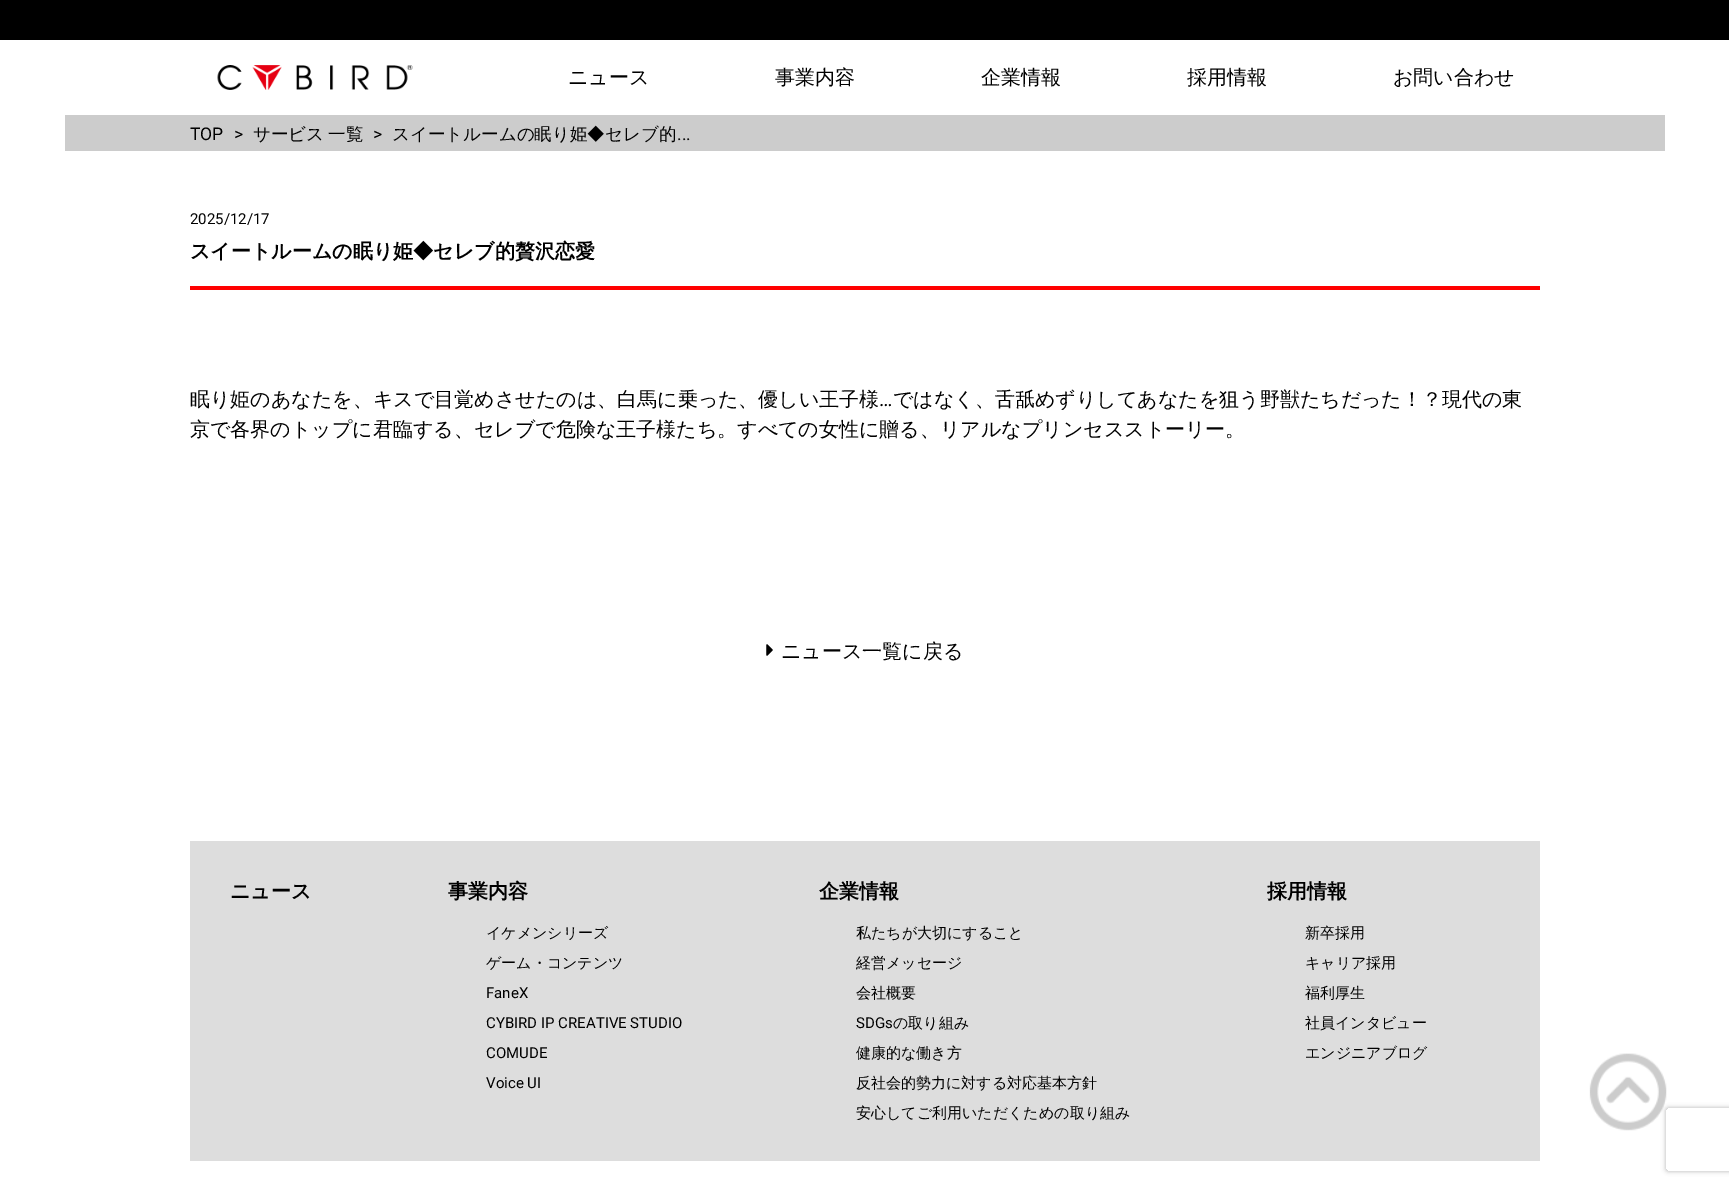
%!PS-Adobe-3.0
%%BoundingBox: 0 0 1729 1193
%%LanguageLevel: 3
%%Pages: 1
%%EndComments
%%BeginProlog
/setalpha { dup .setfillconstantalpha .setstrokeconstantalpha } def
/rrect { 5 dict begin { /r /h /w /y /x } { exch def } forall
  x r add y moveto x w add y 2 copy h add r arct x w add y h add x 1 index r arct
  x y h add x y r arct x y 2 copy exch w add exch r arct closepath end } def
/softshadow { 12 dict begin { /a /b /q /h /w /y /x } { exch def } forall gsave /was 0 def
  9 -2 -9 { dup b mul 4 div /e exch def 1 sub .425 mul 2.718 exch exp 1 add a .99 .min exch div /now exch def
    1 1 now sub 1 was sub div sub setalpha /was now def
    w h .min e 2 mul add 0 gt { x e sub y e sub w e 2 mul add h e 2 mul add
      q e add b .6 mul add w h .min 2 div e add .min 0 .max rrect fill } if } for grestore end } def
/drawimage { 5 dict begin { /h /w /y /x /name } { exch def } forall
  gsave x y translate w h scale
  w h 8 [w 0 0 h 0 0] name (r) file false 3 colorimage grestore end } def
%%EndProlog
%%BeginSetup
<< /PageSize [1729 1193] /PageUsesTransparency true >> setpagedevice
%%EndSetup
%%Page: 1 1
0 .pushpdf14devicefilter
0 1193 translate 1 -1 scale
4 setmiterlimit
1 setgray
0 0 1729 1193 rectfill
0 setgray
0 0 1729 40 rectfill
(images/1.raw) 217 65 196 25 drawimage
0.8 setgray
65 115 1600 36 rectfill
1 0 0 setrgbcolor
190 286 1350 4 rectfill
(images/2.raw) 766 644 7 12 drawimage
0.867 setgray
190 841 1350 320 rectfill
(images/3.raw) 1589 1053 78 78 drawimage
gsave
newpath 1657 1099 moveto 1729 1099 lineto 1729 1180 lineto 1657 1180 lineto closepath 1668 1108 moveto 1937 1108 lineto 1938 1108 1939 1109 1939 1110 curveto 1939 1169 lineto 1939 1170 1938 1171 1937 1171 curveto 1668 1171 lineto 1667 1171 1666 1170 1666 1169 curveto 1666 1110 lineto 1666 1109 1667 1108 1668 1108 curveto closepath eoclip newpath
0.502 setgray
1666 1108 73 63 2 2.5 0.6 softshadow
grestore
/WenQuanYiZenHei-Medium [20 0 0 -20 0 0] selectfont
0 setgray
568 84 moveto (ニュース) show
775 84 moveto (事業内容) show
981 84 moveto (企業情報) show
1187 84 moveto (採用情報) show
1393 84 moveto (お問い合わせ) show
/Roboto-Regular [17.5 0 0 -17.5 0 0] selectfont
190 140 moveto (TOP) show
234 140 moveto (>) show
/WenQuanYiZenHei-Medium [17.5 0 0 -17.5 0 0] selectfont
253 140 moveto -1 0 32 (サービス 一覧) widthshow
/Roboto-Regular [17.5 0 0 -17.5 0 0] selectfont
373 140 moveto (>) show
/WenQuanYiZenHei-Medium [17.5 0 0 -17.5 0 0] selectfont
392 140 moveto (スイートルームの眠り姫◆セレブ的) show
/Roboto-Regular [17.5 0 0 -17.5 0 0] selectfont
677 140 moveto (...) show
/Roboto-Regular [15 0 0 -15 0 0] selectfont
190 224 moveto (2025/12/17) show
/WenQuanYiZenHei-Bold [20 0 0 -20 0 0] selectfont
190 258 moveto (スイートルームの眠り姫◆セレブ的贅沢恋愛) show
/WenQuanYiZenHei-Medium [20 0 0 -20 0 0] selectfont
190 406 moveto (眠り姫のあなたを、キスで目覚めさせたのは、白馬に乗った、優しい王子様) show
/Roboto-Regular [20 0 0 -20 0 0] selectfont
879 406 moveto (…) show
/WenQuanYiZenHei-Medium [20 0 0 -20 0 0] selectfont
893 406 moveto (ではなく、舌舐めずりしてあなたを狙う野獣たちだった！？現代の東) show
190 436 moveto (京で各界のトップに君臨する、セレブで危険な王子様たち。すべての女性に贈る、リアルなプリンセスストーリー。) show
781 658 moveto (ニュース一覧に戻る) show
/WenQuanYiZenHei-Bold [20 0 0 -20 0 0] selectfont
230 898 moveto (ニュース) show
448 898 moveto (事業内容) show
/WenQuanYiZenHei-Medium [15 0 0 -15 0 0] selectfont
486 938 moveto (イケメンシリーズ) show
486 968 moveto (ゲーム・コンテンツ) show
/Roboto-Regular [15 0 0 -15 0 0] selectfont
486 998 moveto (FaneX) show
486 1028 moveto (CYBIRD IP CREATIVE STUDIO) show
486 1058 moveto (COMUDE) show
486 1088 moveto (Voice UI) show
/WenQuanYiZenHei-Bold [20 0 0 -20 0 0] selectfont
819 898 moveto (企業情報) show
/WenQuanYiZenHei-Medium [15 0 0 -15 0 0] selectfont
856 938 moveto (私たちが大切にすること) show
856 968 moveto (経営メッセージ) show
856 998 moveto (会社概要) show
/Roboto-Regular [15 0 0 -15 0 0] selectfont
856 1028 moveto (SDGs) show
/WenQuanYiZenHei-Medium [15 0 0 -15 0 0] selectfont
893 1028 moveto (の取り組み) show
856 1058 moveto (健康的な働き方) show
856 1088 moveto (反社会的勢力に対する対応基本方針) show
856 1118 moveto (安心してご利用いただくための取り組み) show
/WenQuanYiZenHei-Bold [20 0 0 -20 0 0] selectfont
1267 898 moveto (採用情報) show
/WenQuanYiZenHei-Medium [15 0 0 -15 0 0] selectfont
1305 938 moveto (新卒採用) show
1305 968 moveto (キャリア採用) show
1305 998 moveto (福利厚生) show
1305 1028 moveto (社員インタビュー) show
1305 1058 moveto (エンジニアブログ) show
.poppdf14devicefilter showpage
%%EOF
